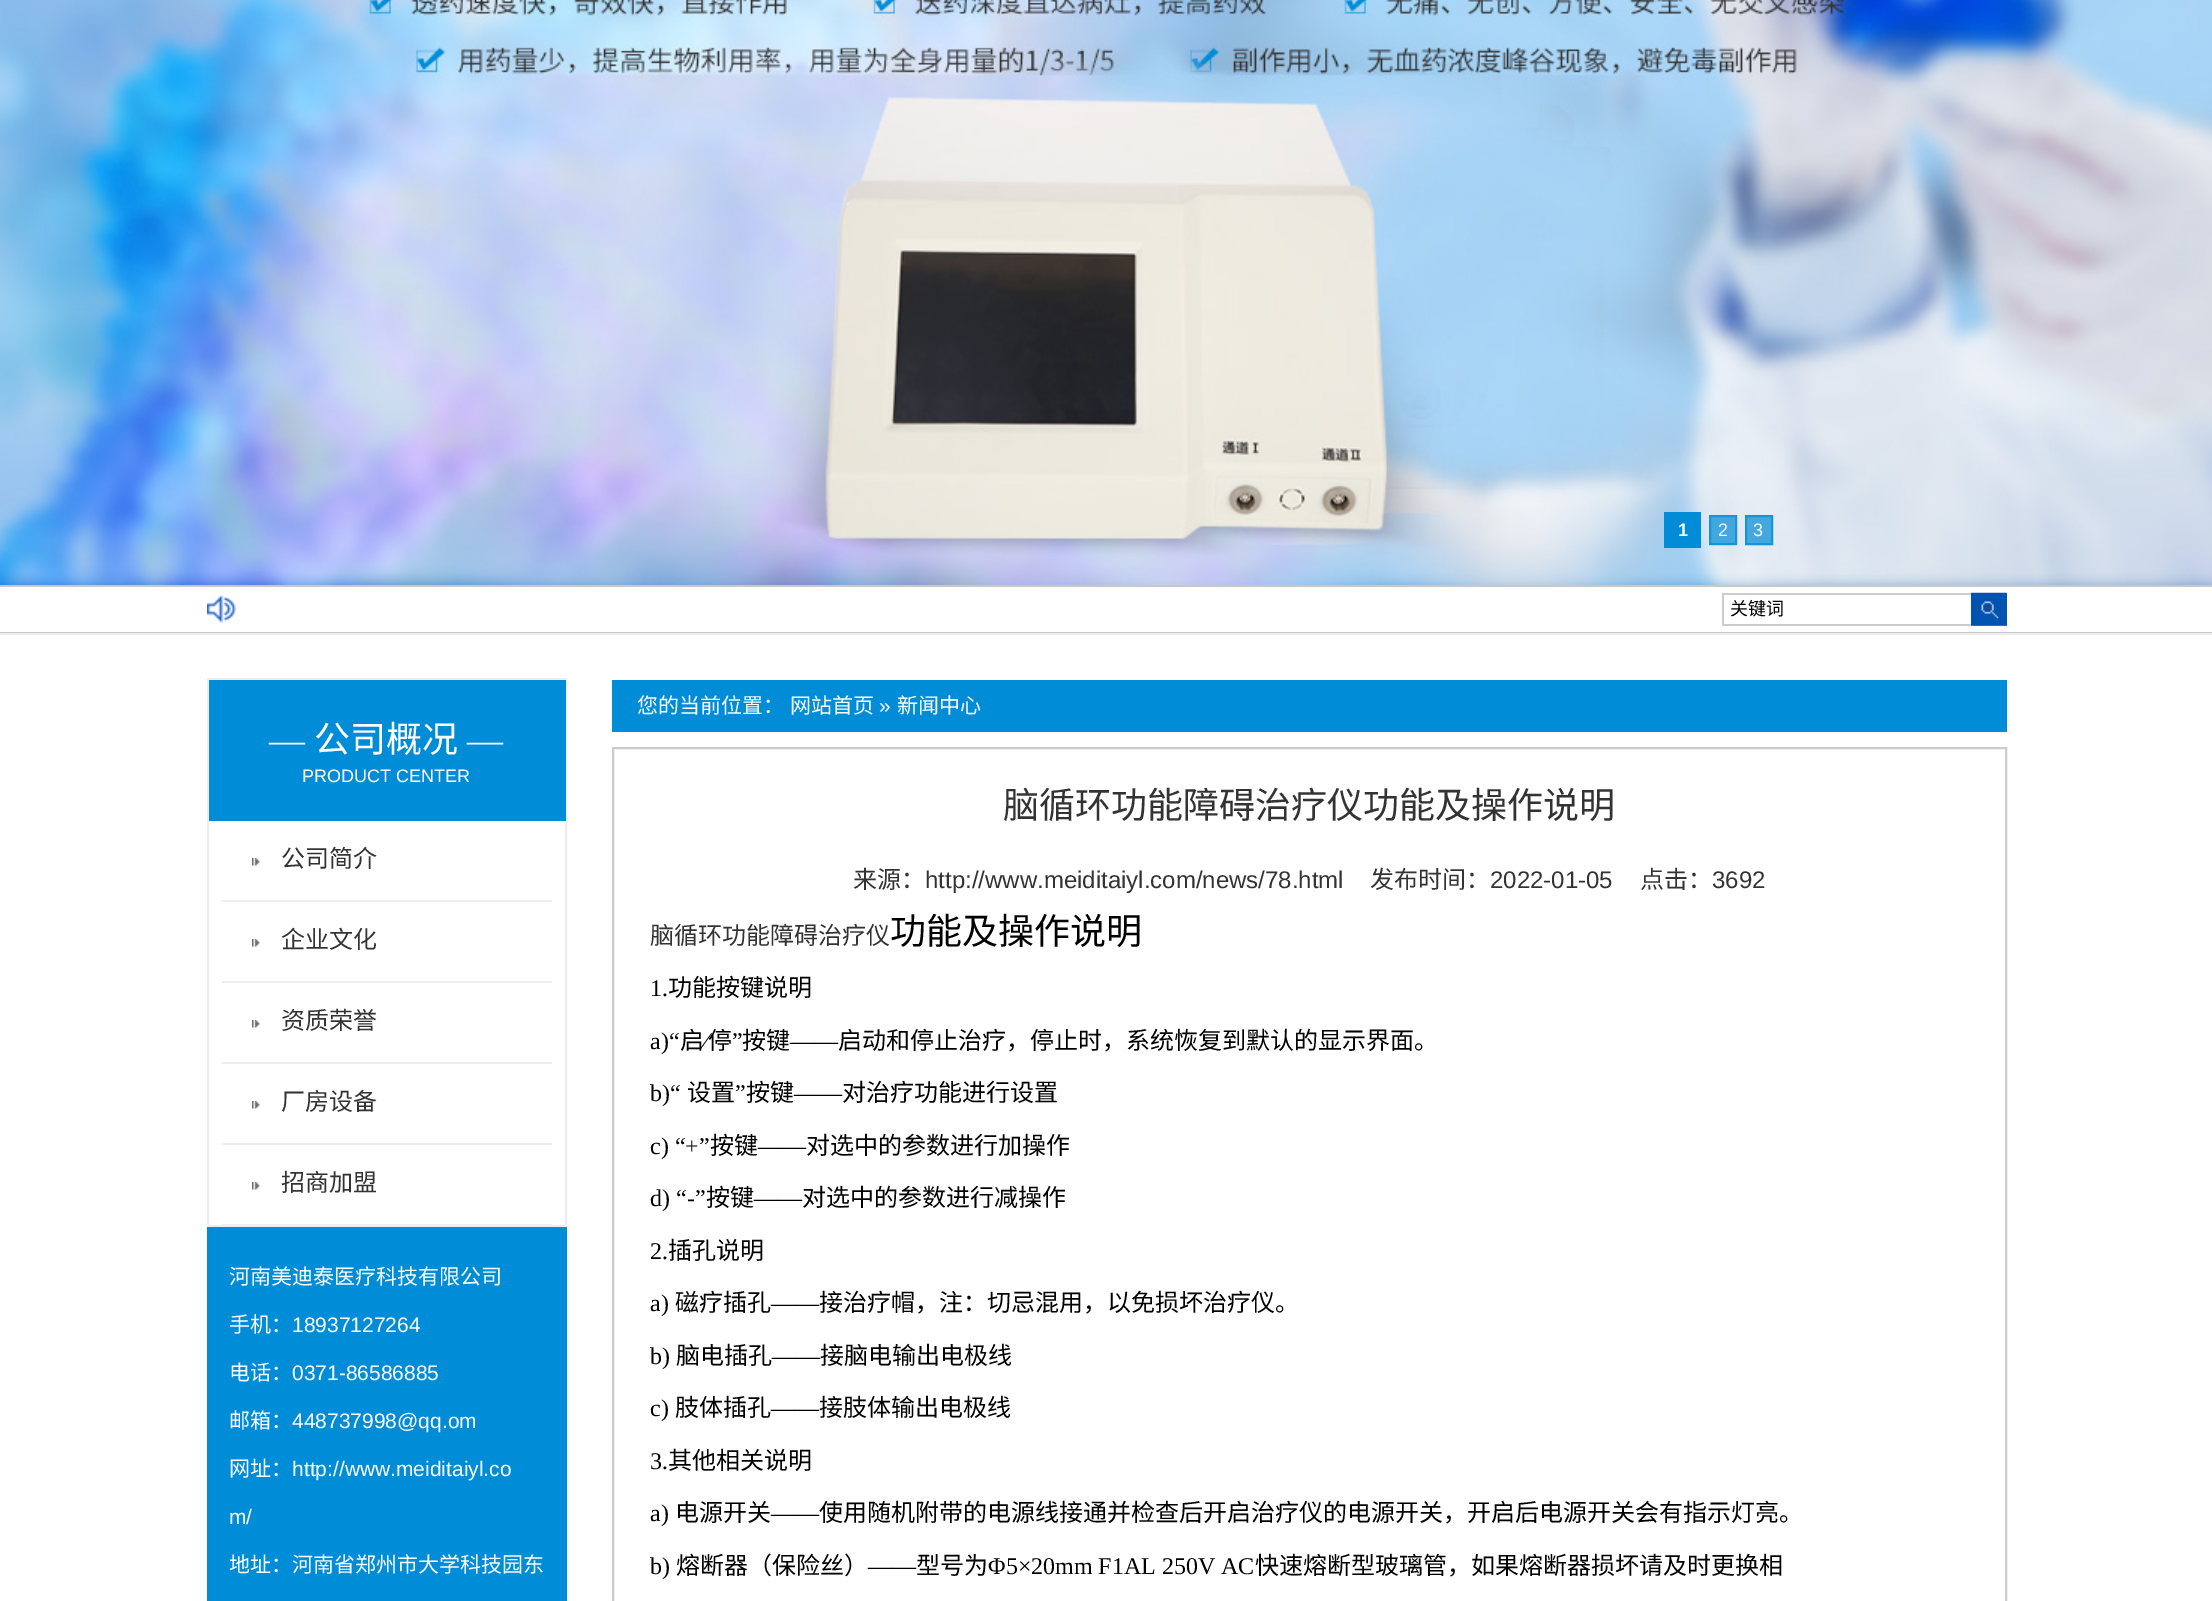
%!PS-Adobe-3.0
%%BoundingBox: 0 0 2212 1601
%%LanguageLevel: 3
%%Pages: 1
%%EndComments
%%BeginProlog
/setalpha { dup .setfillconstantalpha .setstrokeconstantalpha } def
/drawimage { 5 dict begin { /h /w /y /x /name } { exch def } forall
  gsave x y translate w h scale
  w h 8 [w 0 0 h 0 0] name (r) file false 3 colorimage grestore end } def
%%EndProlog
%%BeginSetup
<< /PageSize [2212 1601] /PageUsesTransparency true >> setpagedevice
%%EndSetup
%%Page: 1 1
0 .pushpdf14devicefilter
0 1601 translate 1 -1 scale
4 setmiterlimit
1 setgray
0 0 2212 1601 rectfill
(images/1.raw) 0 0 2212 585 drawimage
0 0.549 0.839 setrgbcolor
1664 512 37 36 rectfill
0.7 setalpha
1709 515 28 30 rectfill
2 setlinewidth
1710 516 26 28 rectstroke
newpath 1746 516 moveto 1772 516 lineto 1772 544 lineto 1746 544 lineto closepath fill
1 setalpha
0.082 0.584 0.851 setrgbcolor
newpath 1746 516 moveto 1772 516 lineto 1772 544 lineto 1746 544 lineto closepath stroke
0.78 0.784 0.8 setrgbcolor
0 585 2212 2 rectfill
0 632 2212 1 rectfill
(images/2.raw) 207 595 29 28 drawimage
0.8 setgray
1722 593 249 2 rectfill
1722 624 249 2 rectfill
1722 593 2 33 rectfill
0 0.549 0.839 setrgbcolor
1971 625 36 1 rectfill
(images/3.raw) 1971 592 36 34 drawimage
0.929 setgray
0 633 2212 2 rectfill
0.933 setgray
208 679 358 547 rectstroke
0 0.549 0.839 setrgbcolor
209 680 357 141 rectfill
(images/4.raw) 252 858 8 8 drawimage
0.933 setgray
222 900 330 2 rectfill
(images/4.raw) 252 939 8 8 drawimage
222 981 330 2 rectfill
(images/4.raw) 252 1020 8 8 drawimage
222 1062 330 2 rectfill
(images/4.raw) 252 1101 8 8 drawimage
222 1143 330 2 rectfill
(images/4.raw) 252 1182 8 8 drawimage
222 1224 330 1 rectfill
0 0.549 0.839 setrgbcolor
207 1227 360 374 rectfill
612 680 1395 52 rectfill
0.8 setgray
613 748 1393 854 rectstroke
/LiberationSans-Bold [18 0 0 -18 0 0] selectfont
1 setgray
1678 536 moveto (1) show
/LiberationSans-Regular [18 0 0 -18 0 0] selectfont
0.961 0.973 0.984 setrgbcolor
1718 536 moveto (2) show
1753 536 moveto (3) show
/NotoSansCJKSC-Regular [18 0 0 -18 0 0] selectfont
0 setgray
1730 615 moveto (关键词) show
/LiberationSerif-Regular [36 0 0 -36 0 0] selectfont
1 setgray
269 752 moveto (—) show
/NotoSansCJKSC-Regular [36 0 0 -36 0 0] selectfont
314 752 moveto (公司概况) show
/LiberationSerif-Regular [36 0 0 -36 0 0] selectfont
467 752 moveto (—) show
/LiberationSans-Regular [18 0 0 -18 0 0] selectfont
302 782 moveto (PRODUCT CENTER) show
/NotoSansCJKSC-Regular [24 0 0 -24 0 0] selectfont
0.2 setgray
281 867 moveto (公司简介) show
281 948 moveto (企业文化) show
281 1029 moveto (资质荣誉) show
281 1110 moveto (厂房设备) show
281 1191 moveto (招商加盟) show
/NotoSansCJKSC-Regular [21 0 0 -21 0 0] selectfont
1 setgray
229 1284 moveto (河南美迪泰医疗科技有限公司) show
229 1332 moveto (手机：) show
/LiberationSans-Regular [21 0 0 -21 0 0] selectfont
292 1332 moveto (18937127264) show
/NotoSansCJKSC-Regular [21 0 0 -21 0 0] selectfont
229 1380 moveto (电话：) show
/LiberationSans-Regular [21 0 0 -21 0 0] selectfont
292 1380 moveto (0371-86586885) show
/NotoSansCJKSC-Regular [21 0 0 -21 0 0] selectfont
229 1428 moveto (邮箱：) show
/LiberationSans-Regular [21 0 0 -21 0 0] selectfont
292 1428 moveto (448737998@qq.om) show
/NotoSansCJKSC-Regular [21 0 0 -21 0 0] selectfont
229 1476 moveto (网址：) show
/LiberationSans-Regular [21 0 0 -21 0 0] selectfont
292 1476 moveto (http://www.meiditaiyl.co) show
229 1524 moveto (m/) show
/NotoSansCJKSC-Regular [21 0 0 -21 0 0] selectfont
229 1572 moveto (地址：河南省郑州市大学科技园东) show
637 713 moveto (您的当前位置：) show
790 713 moveto (网站首页) show
/LiberationSans-Regular [21 0 0 -21 0 0] selectfont
879 713 moveto (») show
/NotoSansCJKSC-Regular [21 0 0 -21 0 0] selectfont
897 713 moveto (新闻中心) show
/NotoSansCJKSC-Regular [36 0 0 -36 0 0] selectfont
0.2 setgray
1003 818 moveto (脑循环功能障碍治疗仪功能及操作说明) show
/NotoSansCJKSC-Regular [24 0 0 -24 0 0] selectfont
853 888 moveto (来源：) show
/LiberationSans-Regular [24 0 0 -24 0 0] selectfont
925 888 moveto (http://www.meiditaiyl.com/news/78.html) show
/NotoSansCJKSC-Regular [24 0 0 -24 0 0] selectfont
1370 888 moveto (发布时间：) show
/LiberationSans-Regular [24 0 0 -24 0 0] selectfont
1490 888 moveto (2022-01-05) show
/NotoSansCJKSC-Regular [24 0 0 -24 0 0] selectfont
1640 888 moveto (点击：) show
/LiberationSans-Regular [24 0 0 -24 0 0] selectfont
1712 888 moveto (3692) show
/NotoSansCJKSC-Regular [24 0 0 -24 0 0] selectfont
650 944 moveto (脑循环功能障碍治疗仪) show
/NotoSansCJKSC-Regular [36 0 0 -36 0 0] selectfont
0 setgray
890 944 moveto (功能及操作说明) show
/LiberationSerif-Regular [24 0 0 -24 0 0] selectfont
650 996 moveto (1.) show
/NotoSansCJKSC-Regular [24 0 0 -24 0 0] selectfont
668 996 moveto (功能按键说明) show
/LiberationSerif-Regular [24 0 0 -24 0 0] selectfont
650 1049 moveto (a\)“) show
/NotoSansCJKSC-Regular [24 0 0 -24 0 0] selectfont
680 1049 moveto (启) show
/LiberationSerif-Regular [24 0 0 -24 0 0] selectfont
704 1049 moveto (∕) show
/NotoSansCJKSC-Regular [24 0 0 -24 0 0] selectfont
708 1049 moveto (停) show
/LiberationSerif-Regular [24 0 0 -24 0 0] selectfont
732 1049 moveto (”) show
/NotoSansCJKSC-Regular [24 0 0 -24 0 0] selectfont
742 1049 moveto (按键) show
838 1049 moveto (启动和停止治疗，停止时，系统恢复到默认的显示界面。) show
/LiberationSerif-Regular [24 0 0 -24 0 0] selectfont
790 1049 moveto (——) show
650 1101 moveto (b\)“) show
/NotoSansCJKSC-Regular [24 0 0 -24 0 0] selectfont
687 1101 moveto (设置) show
/LiberationSerif-Regular [24 0 0 -24 0 0] selectfont
735 1101 moveto (”) show
/NotoSansCJKSC-Regular [24 0 0 -24 0 0] selectfont
746 1101 moveto (按键) show
842 1101 moveto (对治疗功能进行设置) show
/LiberationSerif-Regular [24 0 0 -24 0 0] selectfont
794 1101 moveto (——) show
650 1154 moveto (c\) “+”) show
/NotoSansCJKSC-Regular [24 0 0 -24 0 0] selectfont
710 1154 moveto (按键) show
/LiberationSerif-Regular [24 0 0 -24 0 0] selectfont
758 1154 moveto (——) show
/NotoSansCJKSC-Regular [24 0 0 -24 0 0] selectfont
806 1154 moveto (对选中的参数进行加操作) show
/LiberationSerif-Regular [24 0 0 -24 0 0] selectfont
650 1206 moveto (d\) “-”) show
/NotoSansCJKSC-Regular [24 0 0 -24 0 0] selectfont
706 1206 moveto (按键) show
/LiberationSerif-Regular [24 0 0 -24 0 0] selectfont
754 1206 moveto (——) show
/NotoSansCJKSC-Regular [24 0 0 -24 0 0] selectfont
802 1206 moveto (对选中的参数进行减操作) show
/LiberationSerif-Regular [24 0 0 -24 0 0] selectfont
650 1259 moveto (2.) show
/NotoSansCJKSC-Regular [24 0 0 -24 0 0] selectfont
668 1259 moveto (插孔说明) show
/LiberationSerif-Regular [24 0 0 -24 0 0] selectfont
650 1311 moveto (a\)) show
/NotoSansCJKSC-Regular [24 0 0 -24 0 0] selectfont
675 1311 moveto (磁疗插孔) show
/LiberationSerif-Regular [24 0 0 -24 0 0] selectfont
771 1311 moveto (——) show
/NotoSansCJKSC-Regular [24 0 0 -24 0 0] selectfont
819 1311 moveto (接治疗帽，注：切忌混用，以免损坏治疗仪。) show
/LiberationSerif-Regular [24 0 0 -24 0 0] selectfont
650 1364 moveto (b\)) show
/NotoSansCJKSC-Regular [24 0 0 -24 0 0] selectfont
676 1364 moveto (脑电插孔) show
/LiberationSerif-Regular [24 0 0 -24 0 0] selectfont
772 1364 moveto (——) show
/NotoSansCJKSC-Regular [24 0 0 -24 0 0] selectfont
820 1364 moveto (接脑电输出电极线) show
/LiberationSerif-Regular [24 0 0 -24 0 0] selectfont
650 1416 moveto (c\)) show
/NotoSansCJKSC-Regular [24 0 0 -24 0 0] selectfont
675 1416 moveto (肢体插孔) show
/LiberationSerif-Regular [24 0 0 -24 0 0] selectfont
771 1416 moveto (——) show
/NotoSansCJKSC-Regular [24 0 0 -24 0 0] selectfont
819 1416 moveto (接肢体输出电极线) show
/LiberationSerif-Regular [24 0 0 -24 0 0] selectfont
650 1469 moveto (3.) show
/NotoSansCJKSC-Regular [24 0 0 -24 0 0] selectfont
668 1469 moveto (其他相关说明) show
/LiberationSerif-Regular [24 0 0 -24 0 0] selectfont
650 1521 moveto (a\)) show
/NotoSansCJKSC-Regular [24 0 0 -24 0 0] selectfont
675 1521 moveto (电源开关) show
/LiberationSerif-Regular [24 0 0 -24 0 0] selectfont
771 1521 moveto (——) show
/NotoSansCJKSC-Regular [24 0 0 -24 0 0] selectfont
819 1521 moveto (使用随机附带的电源线接通并检查后开启治疗仪的电源开关，开启后电源开关会有指示灯亮。) show
/LiberationSerif-Regular [24 0 0 -24 0 0] selectfont
650 1574 moveto (b\)) show
/NotoSansCJKSC-Regular [24 0 0 -24 0 0] selectfont
676 1574 moveto (熔断器（保险丝）) show
/LiberationSerif-Regular [24 0 0 -24 0 0] selectfont
868 1574 moveto (——) show
/NotoSansCJKSC-Regular [24 0 0 -24 0 0] selectfont
916 1574 moveto (型号为) show
/LiberationSerif-Regular [24 0 0 -24 0 0] selectfont
988 1574 moveto (Φ5×20mm F1AL 250V AC) show
/NotoSansCJKSC-Regular [24 0 0 -24 0 0] selectfont
1255 1574 moveto (快速熔断型玻璃管，如果熔断器损坏请及时更换相) show
.poppdf14devicefilter showpage
%%EOF
